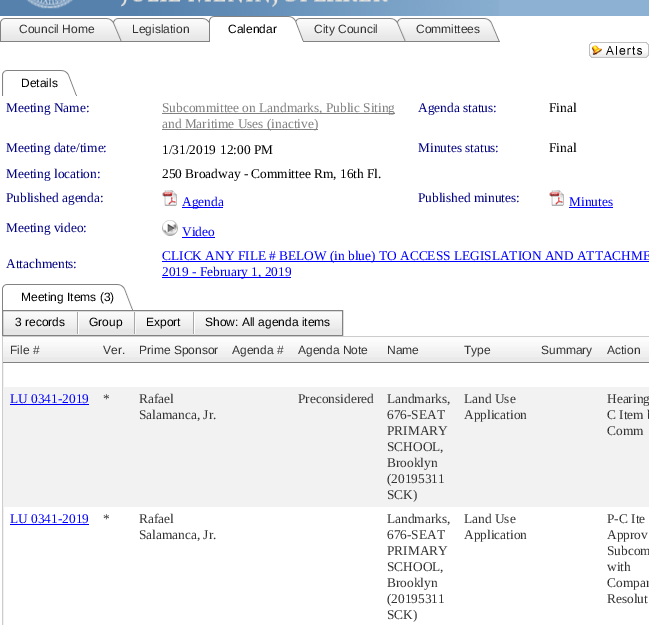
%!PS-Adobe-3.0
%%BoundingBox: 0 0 649 625
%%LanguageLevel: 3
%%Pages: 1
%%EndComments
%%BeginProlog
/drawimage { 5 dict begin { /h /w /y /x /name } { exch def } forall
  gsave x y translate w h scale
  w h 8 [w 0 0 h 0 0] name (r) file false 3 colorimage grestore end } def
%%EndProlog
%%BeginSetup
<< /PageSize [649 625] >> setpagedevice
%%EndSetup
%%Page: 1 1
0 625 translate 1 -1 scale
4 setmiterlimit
1 setgray
0 0 649 625 rectfill
0.549 0.694 0.824 setrgbcolor
499 0 150 16 rectfill
(images/1.raw) 0 0 499 16 drawimage
(images/2.raw) 0 18 9 24 drawimage
(images/3.raw) 9 18 104 24 drawimage
(images/4.raw) 113 18 9 24 drawimage
(images/5.raw) 122 18 87 24 drawimage
(images/6.raw) 209 16 9 26 drawimage
(images/7.raw) 218 16 77 5 drawimage
(images/8.raw) 295 18 9 24 drawimage
(images/9.raw) 304 18 93 24 drawimage
(images/10.raw) 397 18 9 24 drawimage
(images/11.raw) 406 18 94 24 drawimage
(images/12.raw) 589 42 60 16 drawimage
(images/13.raw) 2 70 9 26 drawimage
(images/14.raw) 11 70 66 26 drawimage
0.502 setgray
162 113 233 1 rectfill
162 129 156 1 rectfill
(images/15.raw) 162 190 15 16 drawimage
0 0 1 setrgbcolor
182 207 41 1 rectfill
(images/15.raw) 549 190 15 16 drawimage
569 207 44 1 rectfill
(images/16.raw) 162 220 16 16 drawimage
182 237 33 1 rectfill
162 261 487 1 rectfill
162 277 129 1 rectfill
(images/17.raw) 2 284 9 26 drawimage
(images/18.raw) 11 284 122 26 drawimage
0.902 setgray
3 329 339 6 rectfill
(images/19.raw) 3 311 339 18 drawimage
0.51 setgray
2.5 310.5 340 25 rectstroke
(images/20.raw) 77 312 2 22 drawimage
(images/21.raw) 134 312 2 22 drawimage
(images/20.raw) 193 312 2 22 drawimage
0.8 setgray
2.5 336.5 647 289 rectstroke
0.918 setgray
3 357 646 5 rectfill
(images/22.raw) 3 337 93 20 drawimage
0.51 setgray
3 362 646 1 rectfill
(images/23.raw) 96 337 36 20 drawimage
(images/22.raw) 132 337 93 20 drawimage
(images/24.raw) 225 337 66 20 drawimage
(images/25.raw) 291 337 89 20 drawimage
(images/26.raw) 380 337 77 20 drawimage
(images/26.raw) 457 337 77 20 drawimage
(images/24.raw) 534 337 66 20 drawimage
(images/27.raw) 600 337 49 20 drawimage
0.949 setgray
3 387 646 120 rectfill
0 0 1 setrgbcolor
10 404 79 1 rectfill
10 524 79 1 rectfill
/LiberationSans-Regular [12 0 0 -12 0 0] selectfont
0.2 setgray
19 33 moveto (Council Home) show
132 33 moveto (Legislation) show
0 setgray
228 33 moveto (Calendar) show
0.2 setgray
314 33 moveto (City Council) show
416 33 moveto (Committees) show
0 setgray
21 87 moveto (Details) show
/LiberationSerif-Regular [13.35 0 0 -13.35 0 0] selectfont
0 0 0.502 setrgbcolor
6 112 moveto (Meeting Name:) show
0.502 setgray
162 112 moveto (Subcommittee on Landmarks, Public Siting) show
162 128 moveto (and Maritime Uses \(inactive\)) show
0 0 0.502 setrgbcolor
418 112 moveto (Agenda status:) show
0 setgray
549 112 moveto (Final) show
0 0 0.502 setrgbcolor
6 152 moveto (Meeting date/time:) show
0 setgray
162 154 moveto (1/31/2019) show
220 154 moveto (12:00 PM) show
0 0 0.502 setrgbcolor
418 152 moveto (Minutes status:) show
0 setgray
549 152 moveto (Final) show
0 0 0.502 setrgbcolor
6 178 moveto (Meeting location:) show
0 setgray
162 178 moveto (250 Broadway - Committee Rm, 16th Fl.) show
0 0 0.502 setrgbcolor
6 202 moveto (Published agenda:) show
0 0 1 setrgbcolor
182 206 moveto (Agenda) show
0 0 0.502 setrgbcolor
418 202 moveto (Published minutes:) show
0 0 1 setrgbcolor
569 206 moveto (Minutes) show
0 0 0.502 setrgbcolor
6 232 moveto (Meeting video:) show
0 0 1 setrgbcolor
182 236 moveto (Video) show
0 0 0.502 setrgbcolor
6 268 moveto (Attachments:) show
0 0 1 setrgbcolor
162 260 moveto (CLICK ANY FILE # BELOW \(in blue\) TO ACCESS LEGISLATION AND ATTACHME) show
162 276 moveto (2019 - February 1, 2019) show
/LiberationSans-Regular [12 0 0 -12 0 0] selectfont
0 setgray
21 301 moveto (Meeting Items \(3\)) show
15 326 moveto (3 records) show
89 326 moveto (Group) show
146 326 moveto (Export) show
205 326 moveto (Show: All agenda items) show
0.2 setgray
10 354 moveto (File #) show
103 354 moveto (Ver.) show
139 354 moveto (Prime Sponsor) show
232 354 moveto (Agenda #) show
298 354 moveto (Agenda Note) show
387 354 moveto (Name) show
464 354 moveto (Type) show
541 354 moveto (Summary) show
607 354 moveto (Action) show
/LiberationSerif-Regular [13.35 0 0 -13.35 0 0] selectfont
0 0 1 setrgbcolor
10 403 moveto (LU 0341-2019) show
0.2 setgray
103 403 moveto (*) show
139 403 moveto (Rafael) show
139 419 moveto (Salamanca, Jr.) show
298 403 moveto (Preconsidered) show
387 403 moveto (Landmarks,) show
387 419 moveto (676-SEAT) show
387 435 moveto (PRIMARY) show
387 451 moveto (SCHOOL,) show
387 467 moveto (Brooklyn) show
387 483 moveto (\(20195311) show
387 499 moveto (SCK\)) show
464 403 moveto (Land Use) show
464 419 moveto (Application) show
607 403 moveto (Hearing) show
607 419 moveto (C Item b) show
607 435 moveto (Comm) show
0 0 1 setrgbcolor
10 523 moveto (LU 0341-2019) show
0.2 setgray
103 523 moveto (*) show
139 523 moveto (Rafael) show
139 539 moveto (Salamanca, Jr.) show
387 523 moveto (Landmarks,) show
387 539 moveto (676-SEAT) show
387 555 moveto (PRIMARY) show
387 571 moveto (SCHOOL,) show
387 587 moveto (Brooklyn) show
387 603 moveto (\(20195311) show
387 619 moveto (SCK\)) show
464 523 moveto (Land Use) show
464 539 moveto (Application) show
607 523 moveto (P-C Ite) show
607 539 moveto (Approv) show
607 555 moveto (Subcom) show
607 571 moveto (with) show
607 587 moveto (Compan) show
607 603 moveto (Resolut) show
showpage
%%EOF
